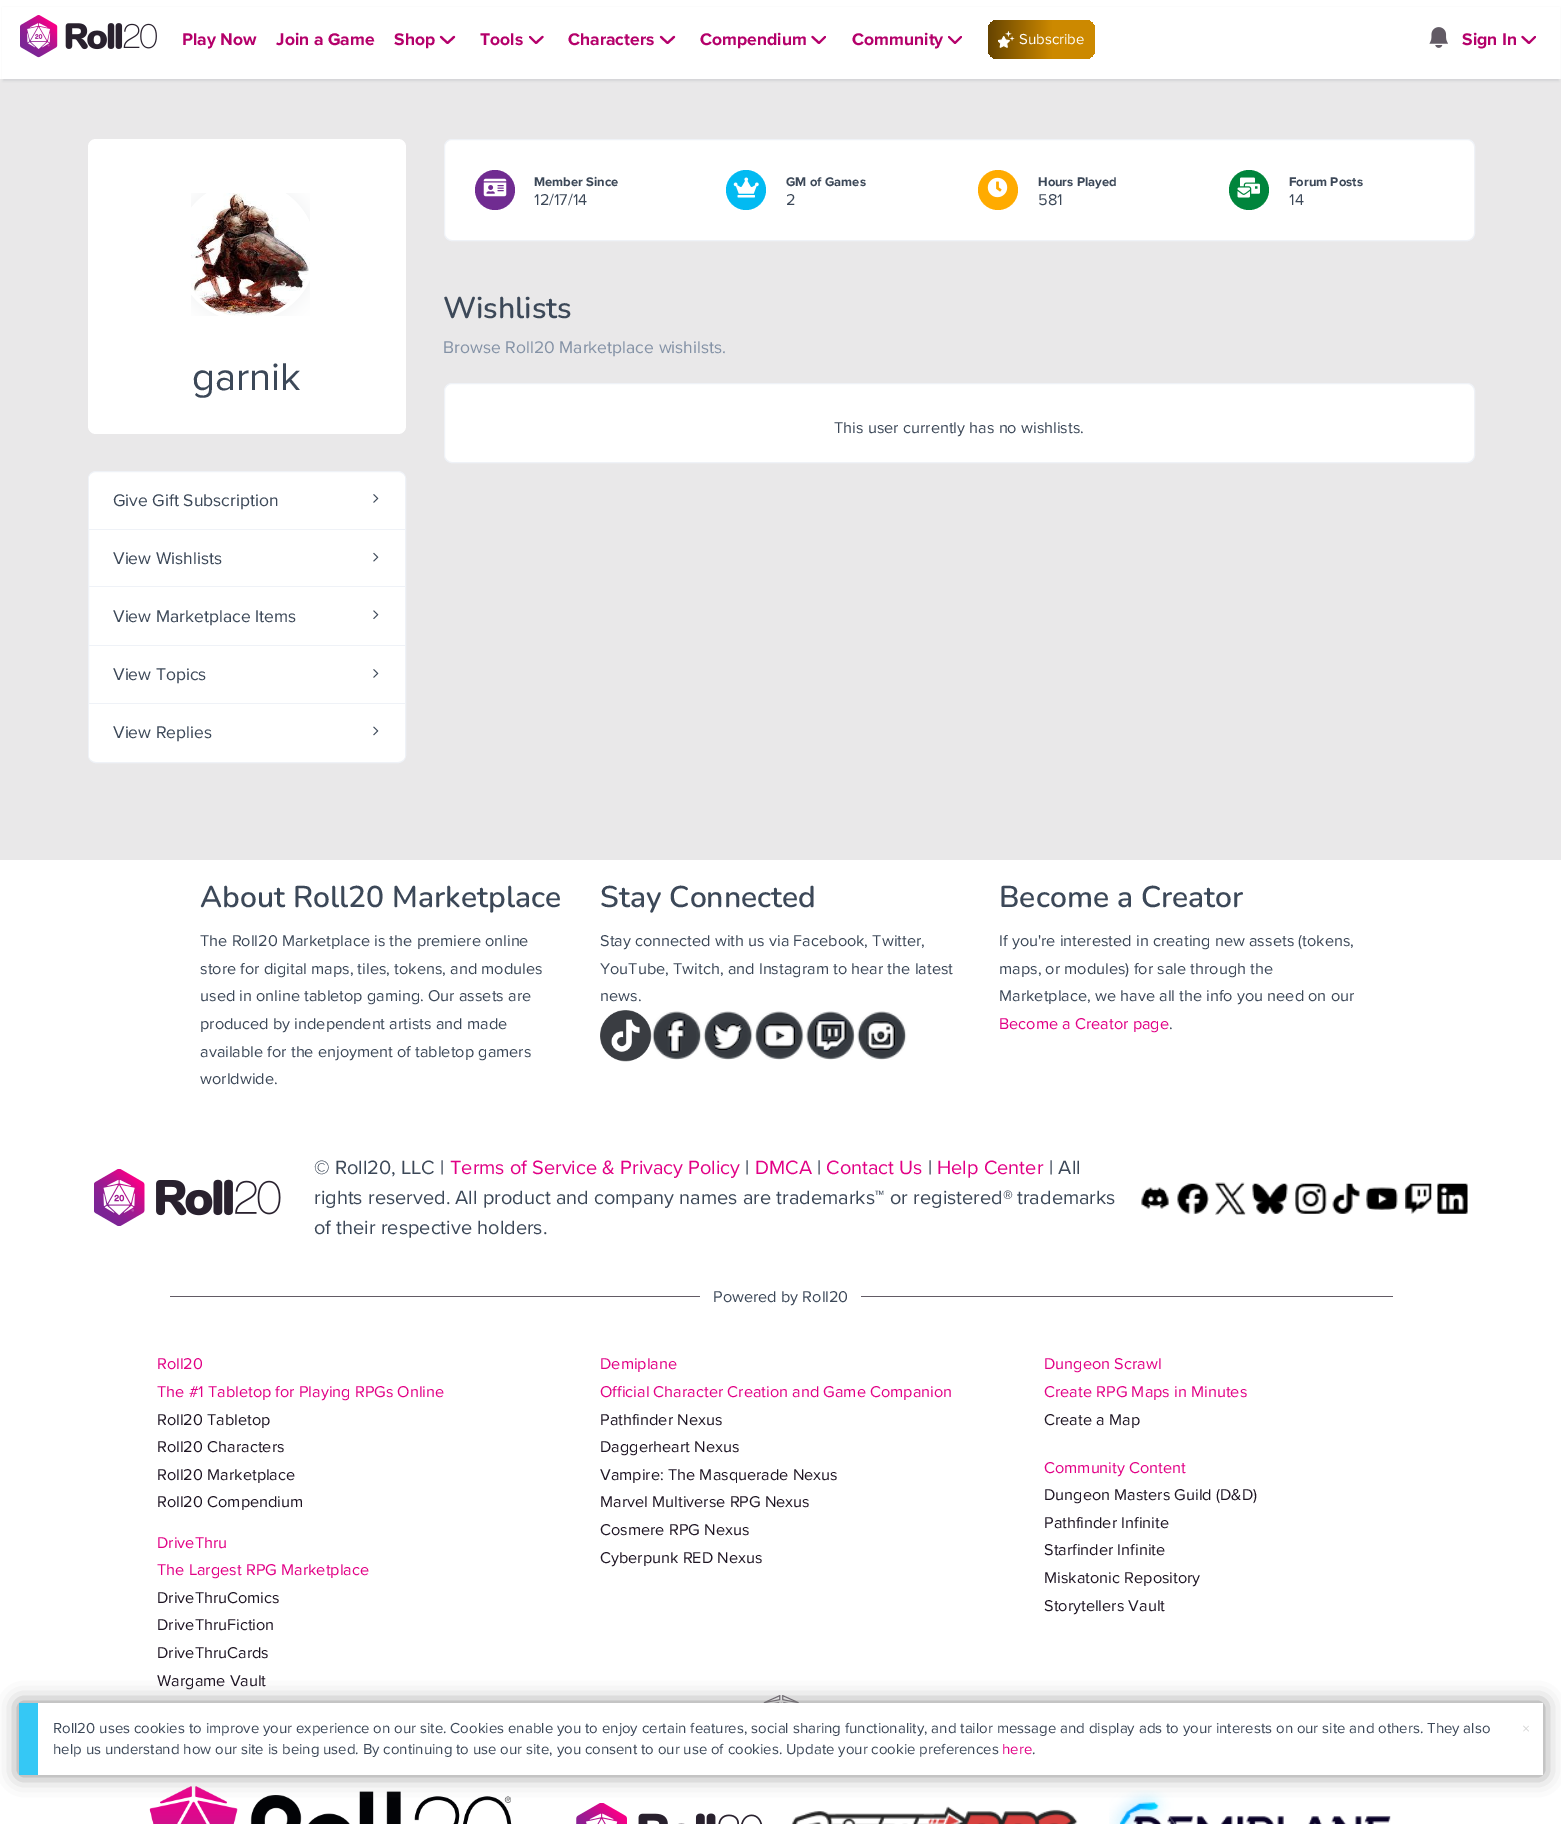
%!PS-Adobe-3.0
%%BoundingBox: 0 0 1561 1824
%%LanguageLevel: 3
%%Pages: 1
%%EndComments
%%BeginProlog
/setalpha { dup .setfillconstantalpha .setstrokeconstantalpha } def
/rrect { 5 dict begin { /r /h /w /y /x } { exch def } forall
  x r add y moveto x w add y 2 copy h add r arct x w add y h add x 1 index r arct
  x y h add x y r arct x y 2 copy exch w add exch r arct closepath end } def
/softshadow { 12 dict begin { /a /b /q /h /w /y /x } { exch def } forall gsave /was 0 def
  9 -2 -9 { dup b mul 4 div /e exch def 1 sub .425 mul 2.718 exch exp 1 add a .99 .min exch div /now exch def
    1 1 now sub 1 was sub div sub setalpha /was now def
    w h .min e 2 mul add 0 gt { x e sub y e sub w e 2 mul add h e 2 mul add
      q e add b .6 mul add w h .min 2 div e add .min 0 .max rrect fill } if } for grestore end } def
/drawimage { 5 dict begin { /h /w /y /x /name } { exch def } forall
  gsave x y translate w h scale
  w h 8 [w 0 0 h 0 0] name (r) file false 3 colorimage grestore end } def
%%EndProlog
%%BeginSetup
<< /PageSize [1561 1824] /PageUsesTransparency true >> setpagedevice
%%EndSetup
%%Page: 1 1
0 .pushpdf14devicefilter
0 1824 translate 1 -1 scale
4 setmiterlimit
1 setgray
0 0 1561 1824 rectfill
0.914 0.91 0.914 setrgbcolor
0 79 1561 781 rectfill
0.122 0.161 0.216 setrgbcolor
3 8 1556 73 0 1 0.1 softshadow
1 setgray
2 7 1558 72 rectfill
(images/1.raw) 20 15 137 43 drawimage
0.706 0 0.416 setrgbcolor
2.1 setlinewidth
1 setlinecap
1 setlinejoin
newpath 441 37 moveto 447.5 43 lineto 454 37 lineto stroke
newpath 530 37 moveto 536 43 lineto 542.5 37 lineto stroke
newpath 661 37 moveto 667.5 43 lineto 674 37 lineto stroke
newpath 812.5 37 moveto 819 43 lineto 825 37 lineto stroke
newpath 949 37 moveto 955 43 lineto 961 37 lineto stroke
gsave 988 20 107 39 10 rrect clip newpath
<< /ShadingType 2 /ColorSpace /DeviceRGB /Coords [1095 39 988 39] /Extend [true true] /Function << /FunctionType 3 /Domain [0 1] /Functions [<< /FunctionType 2 /Domain [0 1] /C0 [0.8 0.537 0] /C1 [0.8 0.537 0] /N 1 >> << /FunctionType 2 /Domain [0 1] /C0 [0.8 0.537 0] /C1 [0.4 0.267 0] /N 1 >>] /Bounds [0.4] /Encode [0 1 0 1] >> >> shfill grestore
(images/2.raw) 998 31 17 17 drawimage
(images/3.raw) 1429 27 19 21 drawimage
newpath 1522.5 37 moveto 1529 43 lineto 1535 37 lineto stroke
1 setgray
444.5 139.5 1030 101 7.5 rrect gsave fill grestore
0.937 0.949 0.969 setrgbcolor
1 setlinewidth
0 setlinecap
0 setlinejoin
stroke
0.439 0.173 0.569 setrgbcolor
newpath 495 190 20 0 360 arc closepath fill
(images/4.raw) 483 178 24 19 drawimage
0.008 0.729 0.949 setrgbcolor
newpath 746 190 20 0 360 arc closepath fill
(images/5.raw) 733 177 26 21 drawimage
1 0.671 0 setrgbcolor
newpath 998 190 20 0 360 arc closepath fill
(images/6.raw) 987 177 21 21 drawimage
0 0.522 0.235 setrgbcolor
newpath 1249 190 20 0 360 arc closepath fill
(images/7.raw) 1237 177 23 21 drawimage
1 setgray
444.5 383.5 1030 79 7.5 rrect gsave fill grestore
0.937 0.949 0.969 setrgbcolor
stroke
1 setgray
88 139 318 295 8 rrect fill
(images/8.raw) 191 193 119 123 drawimage
88.5 471.5 317 291 7.5 rrect gsave fill grestore
0.937 0.949 0.969 setrgbcolor
stroke
1 setgray
newpath 95 473 moveto 399 473 lineto 402.5 473 405 475.5 405 479 curveto 405 529 lineto 89 529 lineto 89 479 lineto 89 475.5 91.5 473 95 473 curveto closepath fill
0.937 0.949 0.969 setrgbcolor
89 529 316 1 rectfill
(images/9.raw) 373 494 6 9 drawimage
89 586 316 1 rectfill
(images/10.raw) 373 552 6 10 drawimage
89 645 316 1 rectfill
(images/11.raw) 373 610 6 9 drawimage
89 703 316 1 rectfill
(images/9.raw) 373 669 6 9 drawimage
1 setgray
newpath 89 704 moveto 405 704 lineto 405 755 lineto 405 758.5 402.5 761 399 761 curveto 95 761 lineto 91.5 761 89 758.5 89 755 curveto closepath fill
(images/12.raw) 373 726 6 10 drawimage
(images/13.raw) 600 1010 52 52 drawimage
(images/14.raw) 652 1011 50 49 drawimage
(images/15.raw) 703 1011 50 49 drawimage
(images/16.raw) 755 1011 49 49 drawimage
(images/17.raw) 806 1011 49 49 drawimage
(images/18.raw) 857 1011 50 49 drawimage
(images/19.raw) 94 1169 187 57 drawimage
(images/20.raw) 1141 1187 28 22 drawimage
(images/21.raw) 1177 1183 32 31 drawimage
(images/22.raw) 1215 1182 31 33 drawimage
(images/23.raw) 1252 1183 36 31 drawimage
(images/24.raw) 1295 1183 32 31 drawimage
(images/25.raw) 1332 1183 28 31 drawimage
(images/26.raw) 1366 1187 32 23 drawimage
(images/27.raw) 1405 1183 27 31 drawimage
(images/28.raw) 1437 1183 31 31 drawimage
0.384 0.357 0.396 setrgbcolor
170 1296 530 1 rectfill
861 1296 532 1 rectfill
(images/29.raw) 763 1695 36 8 drawimage
(images/30.raw) 149 1786 363 38 drawimage
(images/31.raw) 576 1803 187 21 drawimage
(images/32.raw) 791 1806 287 18 drawimage
(images/33.raw) 1109 1790 282 34 drawimage
0.533 setgray
19 1703 1524 72 0 10 1 softshadow
1 setgray
38 1703 1505 72 rectfill
0.208 0.784 0.961 setrgbcolor
19 1703 19 72 rectfill
/ProximaNova-Bold [17.5 0 0 -17.5 0 0] selectfont
0.706 0 0.416 setrgbcolor
182 45 moveto (Play Now) show
276 45 moveto (Join a Game) show
394 45 moveto (Shop) show
480 45 moveto (Tools) show
568 45 moveto (Characters) show
700 45 moveto (Compendium) show
852 45 moveto (Community) show
/ProximaNova-Regular [15 0 0 -15 0 0] selectfont
1 setgray
1019 44 moveto (Subscribe) show
/ProximaNova-Bold [17.5 0 0 -17.5 0 0] selectfont
0.706 0 0.416 setrgbcolor
1462 45 moveto (Sign In) show
/ProximaNova-Bold [13 0 0 -13 0 0] selectfont
0.235 0.282 0.345 setrgbcolor
534 186 moveto (Member Since) show
/ProximaNova-Regular [16.25 0 0 -16.25 0 0] selectfont
534 205 moveto (12/17/14) show
/ProximaNova-Bold [13 0 0 -13 0 0] selectfont
786 186 moveto (GM of Games) show
/ProximaNova-Regular [16.25 0 0 -16.25 0 0] selectfont
786 205 moveto (2) show
/ProximaNova-Bold [13 0 0 -13 0 0] selectfont
1038 186 moveto (Hours Played) show
/ProximaNova-Regular [16.25 0 0 -16.25 0 0] selectfont
1038 205 moveto (581) show
/ProximaNova-Bold [13 0 0 -13 0 0] selectfont
1289 186 moveto (Forum Posts) show
/ProximaNova-Regular [16.25 0 0 -16.25 0 0] selectfont
1289 205 moveto (14) show
/Nunito-SemiBold [30 0 0 -30 0 0] selectfont
443 318 moveto (Wishlists) show
/ProximaNova-Regular [17.5 0 0 -17.5 0 0] selectfont
0.518 0.573 0.651 setrgbcolor
443 353 moveto (Browse Roll20 Marketplace wishilsts.) show
/ProximaNova-Regular [16.25 0 0 -16.25 0 0] selectfont
0.235 0.282 0.345 setrgbcolor
834 433 moveto (This user currently has no wishlists.) show
/ProximaNova-Regular [40 0 0 -40 0 0] selectfont
192 390 moveto (garnik) show
/ProximaNova-Regular [17.5 0 0 -17.5 0 0] selectfont
113 506 moveto (Give Gift Subscription) show
113 564 moveto (View Wishlists) show
113 622 moveto (View Marketplace Items) show
113 680 moveto (View Topics) show
113 738 moveto (View Replies) show
/Nunito-SemiBold [30 0 0 -30 0 0] selectfont
200 907 moveto (About Roll20 Marketplace) show
/ProximaNova-Regular [16.25 0 0 -16.25 0 0] selectfont
200 946 moveto (The Roll20 Marketplace is the premiere online) show
200 974 moveto (store for digital maps, tiles, tokens, and modules) show
200 1001 moveto (used in online tabletop gaming. Our assets are) show
200 1029 moveto (produced by independent artists and made) show
200 1057 moveto (available for the enjoyment of tabletop gamers) show
200 1084 moveto (worldwide.) show
/Nunito-SemiBold [30 0 0 -30 0 0] selectfont
600 907 moveto (Stay Connected) show
/ProximaNova-Regular [16.25 0 0 -16.25 0 0] selectfont
600 946 moveto (Stay connected with us via Facebook, Twitter,) show
600 974 moveto (YouTube, Twitch, and Instagram to hear the latest) show
600 1001 moveto (news.) show
/Nunito-SemiBold [30 0 0 -30 0 0] selectfont
999 907 moveto (Become a Creator) show
/ProximaNova-Regular [16.25 0 0 -16.25 0 0] selectfont
999 946 moveto (If you're interested in creating new assets \(tokens,) show
999 974 moveto (maps, or modules\) for sale through the) show
999 1001 moveto (Marketplace, we have all the info you need on our) show
0.882 0 0.522 setrgbcolor
999 1029 moveto (Become a Creator page) show
0.235 0.282 0.345 setrgbcolor
1169 1029 moveto (.) show
/ProximaNova-Regular [20 0 0 -20 0 0] selectfont
314 1174 moveto (© Roll20, LLC |) show
0.882 0 0.522 setrgbcolor
450 1174 moveto (Terms of Service & Privacy Policy) show
0.235 0.282 0.345 setrgbcolor
745 1174 moveto (|) show
0.882 0 0.522 setrgbcolor
755 1174 moveto (DMCA) show
0.235 0.282 0.345 setrgbcolor
817 1174 moveto (|) show
0.882 0 0.522 setrgbcolor
826 1174 moveto (Contact Us) show
0.235 0.282 0.345 setrgbcolor
928 1174 moveto (|) show
0.882 0 0.522 setrgbcolor
937 1174 moveto (Help Center) show
0.235 0.282 0.345 setrgbcolor
1049 1174 moveto (| All) show
314 1204 moveto (rights reserved. All product and company names are trademarks™) show
890 1204 moveto (or registered®) show
1017 1204 moveto (trademarks) show
314 1234 moveto (of their respective holders.) show
/ProximaNova-Regular [16.25 0 0 -16.25 0 0] selectfont
713 1302 moveto (Powered by Roll20) show
0.882 0 0.522 setrgbcolor
157 1369 moveto (Roll20) show
157 1397 moveto (The #1 Tabletop for Playing RPGs Online) show
0.118 0.082 0.137 setrgbcolor
157 1425 moveto (Roll20 Tabletop) show
157 1452 moveto (Roll20 Characters) show
157 1480 moveto (Roll20 Marketplace) show
157 1507 moveto (Roll20 Compendium) show
0.882 0 0.522 setrgbcolor
600 1369 moveto (Demiplane) show
600 1397 moveto (Official Character Creation and Game Companion) show
0.118 0.082 0.137 setrgbcolor
600 1425 moveto (Pathfinder Nexus) show
600 1452 moveto (Daggerheart Nexus) show
600 1480 moveto (Vampire: The Masquerade Nexus) show
600 1507 moveto (Marvel Multiverse RPG Nexus) show
600 1535 moveto (Cosmere RPG Nexus) show
600 1563 moveto (Cyberpunk RED Nexus) show
0.882 0 0.522 setrgbcolor
1044 1369 moveto (Dungeon Scrawl) show
1044 1397 moveto (Create RPG Maps in Minutes) show
0.118 0.082 0.137 setrgbcolor
1044 1425 moveto (Create a Map) show
0.882 0 0.522 setrgbcolor
157 1548 moveto (DriveThru) show
157 1575 moveto (The Largest RPG Marketplace) show
0.118 0.082 0.137 setrgbcolor
157 1603 moveto (DriveThruComics) show
157 1630 moveto (DriveThruFiction) show
157 1658 moveto (DriveThruCards) show
157 1686 moveto (Wargame Vault) show
0.882 0 0.522 setrgbcolor
1044 1473 moveto (Community Content) show
0.118 0.082 0.137 setrgbcolor
1044 1500 moveto (Dungeon Masters Guild \(D&D\)) show
1044 1528 moveto (Pathfinder Infinite) show
1044 1555 moveto (Starfinder Infinite) show
1044 1583 moveto (Miskatonic Repository) show
1044 1611 moveto (Storytellers Vault) show
/ProximaNova-Regular [15 0 0 -15 0 0] selectfont
0.235 0.282 0.345 setrgbcolor
53 1733 moveto (Roll20 uses cookies to improve your experience on our site. Cookies enable you to enjoy certain features, social sharing functionality, and tailor message and display ads to your interests on our site and others. They also) show
53 1754 moveto (help us understand how our site is being used. By continuing to use our site, you consent to our use of cookies. Update your cookie preferences) show
0.882 0 0.522 setrgbcolor
1002 1754 moveto (here) show
0.235 0.282 0.345 setrgbcolor
1032 1754 moveto (.) show
/ProximaNova-Regular [16.25 0 0 -16.25 0 0] selectfont
0.82 setgray
1522 1734 moveto (×) show
.poppdf14devicefilter showpage
%%EOF
